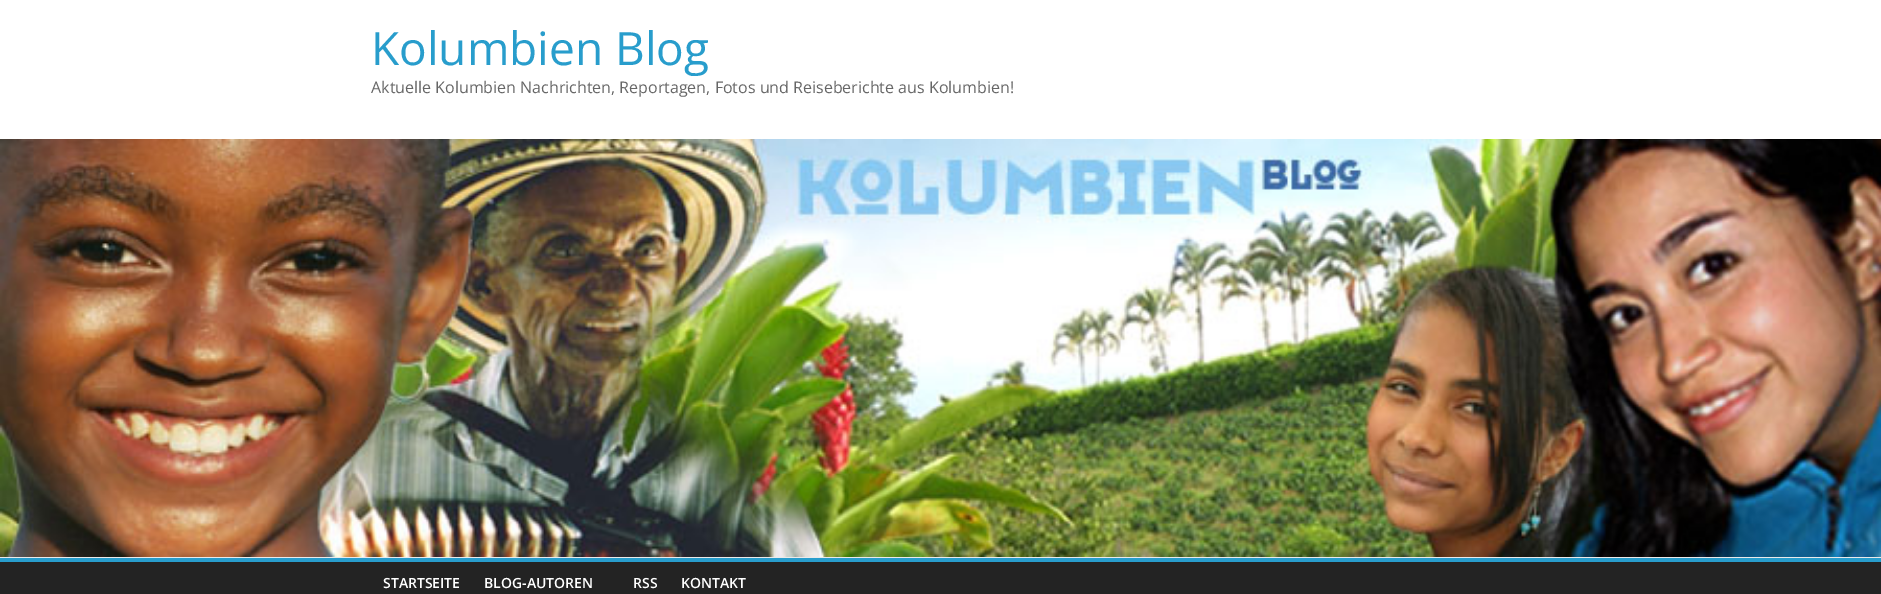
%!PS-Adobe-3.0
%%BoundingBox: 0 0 1881 594
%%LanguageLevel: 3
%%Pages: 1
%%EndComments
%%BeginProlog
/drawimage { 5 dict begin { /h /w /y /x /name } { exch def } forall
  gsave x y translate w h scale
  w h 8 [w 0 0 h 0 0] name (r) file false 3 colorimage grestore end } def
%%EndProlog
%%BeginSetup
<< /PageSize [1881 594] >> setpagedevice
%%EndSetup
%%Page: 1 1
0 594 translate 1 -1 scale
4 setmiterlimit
1 setgray
0 0 1881 594 rectfill
(images/1.raw) 0 139 1881 418 drawimage
0.918 setgray
0 557 1881 1 rectfill
0.137 setgray
0 562 1881 32 rectfill
0.157 0.616 0.8 setrgbcolor
0 558 1881 4 rectfill
/OpenSans-Regular [46 0 0 -46 0 0] selectfont
371 65 moveto (Kolumbien Blog) show
/OpenSans-Regular [16 0 0 -16 0 0] selectfont
0.4 setgray
371 93 moveto (Aktuelle Kolumbien Nachrichten, Reportagen, Fotos und Reiseberichte aus Kolumbien!) show
/OpenSans-SemiBold [14 0 0 -14 0 0] selectfont
1 setgray
383 588 moveto (STARTSEITE) show
484 588 moveto (BLOG-AUTOREN) show
633 588 moveto (RSS) show
681 588 moveto (KONTAKT) show
showpage
%%EOF
